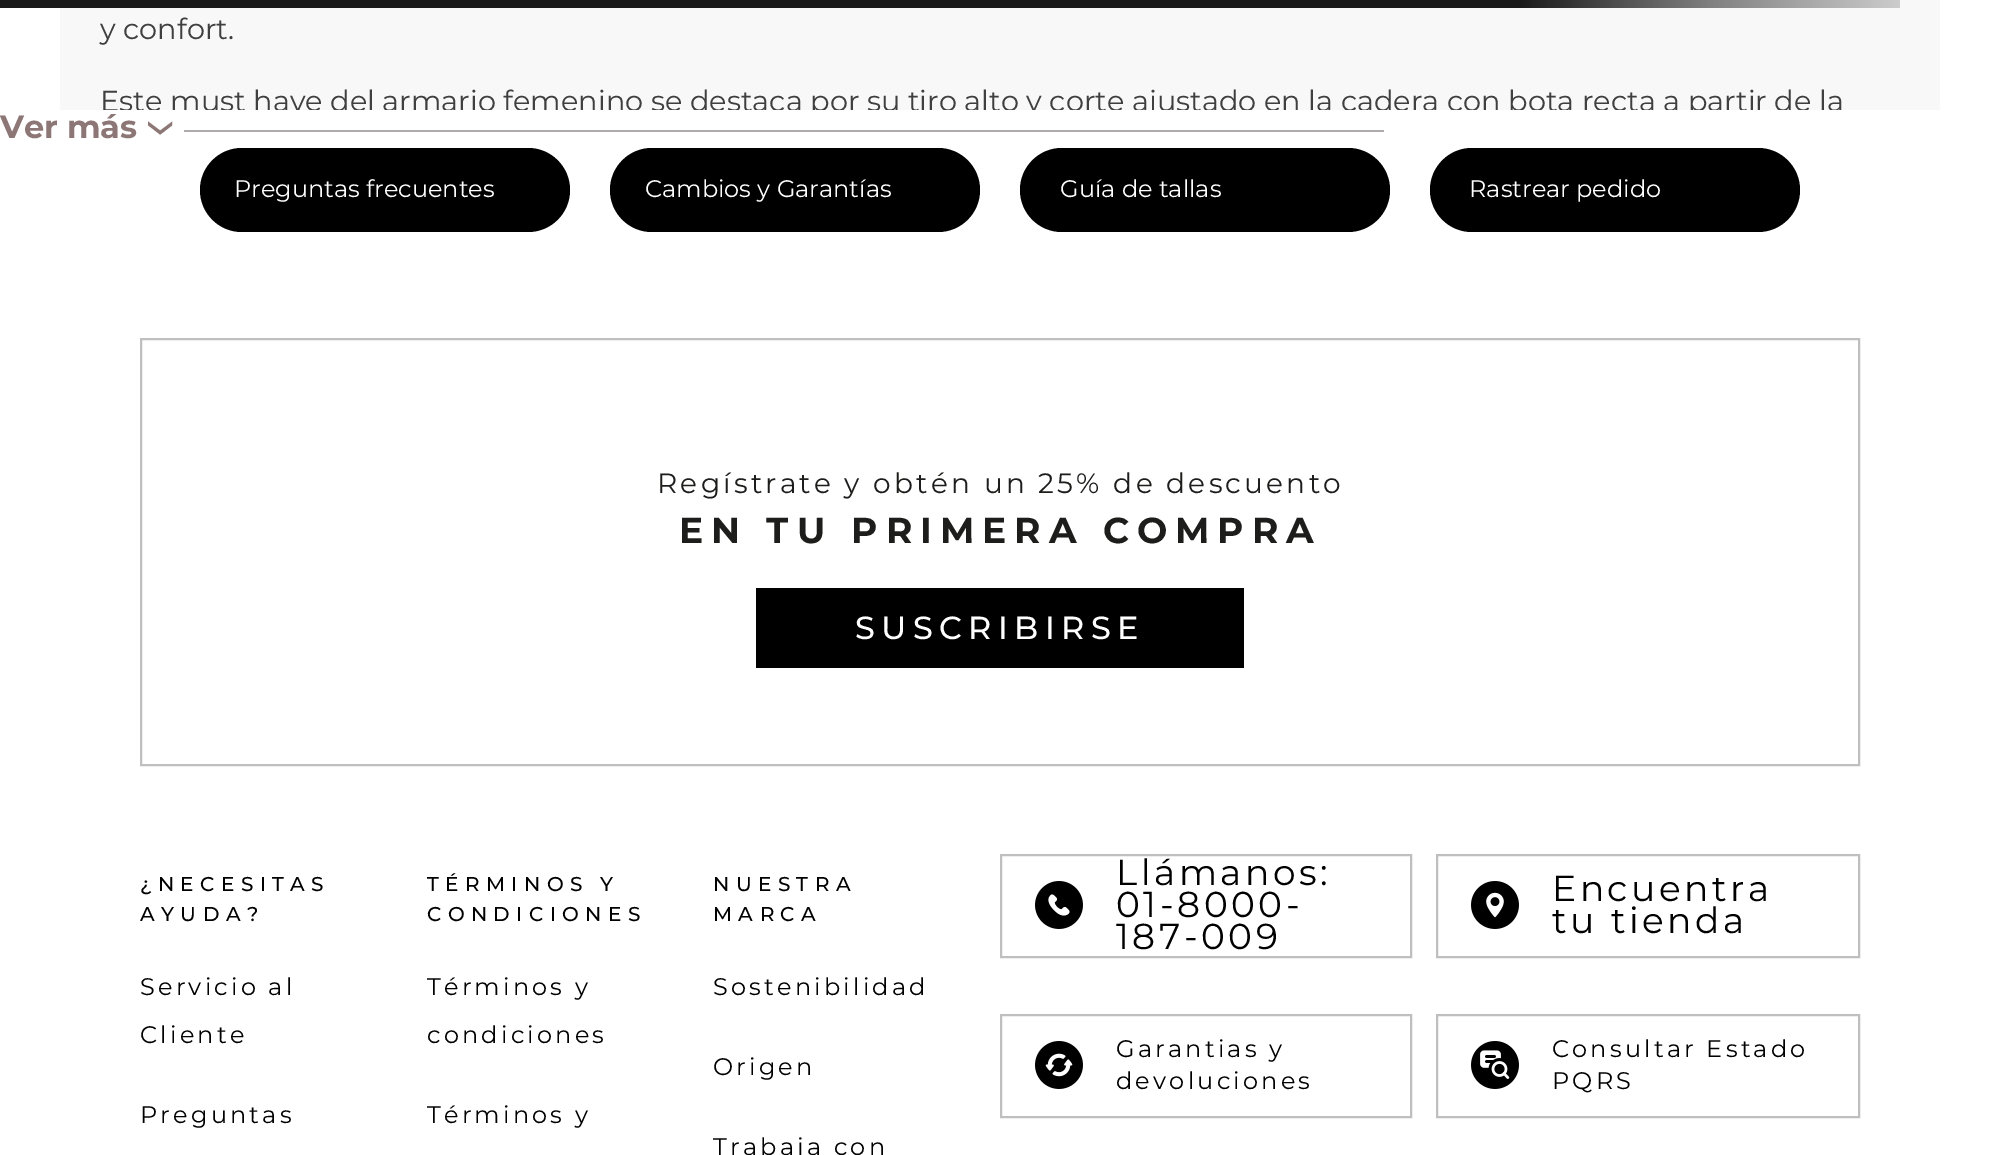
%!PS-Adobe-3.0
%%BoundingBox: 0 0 1999 1155
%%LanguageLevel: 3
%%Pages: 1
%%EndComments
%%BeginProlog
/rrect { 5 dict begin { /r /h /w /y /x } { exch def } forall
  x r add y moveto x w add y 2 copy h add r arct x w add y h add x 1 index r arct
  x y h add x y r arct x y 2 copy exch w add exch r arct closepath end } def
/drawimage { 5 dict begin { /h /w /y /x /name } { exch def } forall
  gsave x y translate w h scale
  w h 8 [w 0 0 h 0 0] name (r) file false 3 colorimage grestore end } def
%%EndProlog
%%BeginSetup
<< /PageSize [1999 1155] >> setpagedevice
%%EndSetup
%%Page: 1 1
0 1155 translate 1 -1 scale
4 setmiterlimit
1 setgray
0 0 1999 1155 rectfill
0.973 setgray
60 0 1880 110 rectfill
gsave newpath 0 0 moveto 1900 0 lineto 1900 8 lineto 0 8 lineto closepath clip newpath
<< /ShadingType 2 /ColorSpace /DeviceRGB /Coords [0 4 1900 4] /Extend [true true] /Function << /FunctionType 3 /Domain [0 1] /Functions [<< /FunctionType 2 /Domain [0 1] /C0 [0.102 0.102 0.102] /C1 [0.102 0.102 0.102] /N 1 >> << /FunctionType 2 /Domain [0 1] /C0 [0.102 0.102 0.102] /C1 [0.502 0.502 0.502] /N 1 >> << /FunctionType 2 /Domain [0 1] /C0 [0.502 0.502 0.502] /C1 [0.8 0.8 0.8] /N 1 >>] /Bounds [0.8 0.9] /Encode [0 1 0 1 0 1] >> >> shfill grestore
0.694 0.675 0.675 setrgbcolor
184 130 1200 2 rectfill
0 setgray
200 148 370 84 42 rrect fill
610 148 370 84 42 rrect fill
1020 148 370 84 42 rrect fill
1430 148 370 84 42 rrect fill
0.749 setgray
2 setlinewidth
141 339 1718 426 rectstroke
0 setgray
756 588 488 80 rectfill
0.749 setgray
1001 855 410 102 rectstroke
(images/1.raw) 1035 881 48 48 drawimage
1001 1015 410 102 rectstroke
(images/2.raw) 1035 1041 48 48 drawimage
1437 855 422 102 rectstroke
(images/3.raw) 1471 881 48 48 drawimage
1437 1015 422 102 rectstroke
(images/4.raw) 1471 1041 48 48 drawimage
/Montserrat-Regular [28.8 0 0 -28.8 0 0] selectfont
0.247 0.247 0.251 setrgbcolor
100 39 moveto (y confort.) show
gsave
60 0 1880 110 rectclip
100 111 moveto (Este must have del armario femenino se destaca por su tiro alto y corte ajustado en la cadera con bota recta a partir de la) show
grestore
/Montserrat-Bold [32 0 0 -32 0 0] selectfont
0.553 0.463 0.463 setrgbcolor
0 138 moveto (Ver más) show
/Montserrat-Regular [64 0 0 -64 0 0] selectfont
gsave 177 138 translate -90 rotate 0 0 moveto (‹) show grestore
/Montserrat-Regular [24 0 0 -24 0 0] selectfont
1 setgray
234 197 moveto (Preguntas frecuentes) show
645 197 moveto (Cambios y Garantías) show
1060 197 moveto (Guía de tallas) show
1469 197 moveto (Rastrear pedido) show
/Montserrat-Regular [28 0 0 -28 0 0] selectfont
0.114 0.114 0.106 setrgbcolor
657 493 moveto 3.2 0 (Regístrate y obtén un 25% de descuento) ashow
/Montserrat-Bold [36 0 0 -36 0 0] selectfont
679 543 moveto 8 0 (EN TU PRIMERA COMPRA) ashow
/Montserrat-Medium [32 0 0 -32 0 0] selectfont
1 setgray
855 639 moveto 6.4 0 (SUSCRIBIRSE) ashow
/Montserrat-Medium [20 0 0 -20 0 0] selectfont
0 setgray
140 891 moveto 6.4 0 (¿NECESITAS) ashow
140 921 moveto 6.4 0 (AYUDA?) ashow
/Montserrat-Regular [24 0 0 -24 0 0] selectfont
140 995 moveto 3.2 0 (Servicio al) ashow
140 1043 moveto 3.2 0 (Cliente) ashow
140 1123 moveto 3.2 0 (Preguntas) ashow
/Montserrat-Medium [20 0 0 -20 0 0] selectfont
427 891 moveto 6.4 0 (TÉRMINOS Y) ashow
427 921 moveto 6.4 0 (CONDICIONES) ashow
/Montserrat-Regular [24 0 0 -24 0 0] selectfont
427 995 moveto 3.2 0 (Términos y) ashow
427 1043 moveto 3.2 0 (condiciones) ashow
427 1123 moveto 3.2 0 (Términos y) ashow
/Montserrat-Medium [20 0 0 -20 0 0] selectfont
713 891 moveto 6.4 0 (NUESTRA) ashow
713 921 moveto 6.4 0 (MARCA) ashow
/Montserrat-Regular [24 0 0 -24 0 0] selectfont
713 995 moveto 3.2 0 (Sostenibilidad) ashow
713 1075 moveto 3.2 0 (Origen) ashow
713 1155 moveto 3.2 0 (Trabaja con) ashow
/Montserrat-Regular [36 0 0 -36 0 0] selectfont
1116 885 moveto 3.5 0 (Llámanos:) ashow
1116 917 moveto 3.5 0 (01-8000-) ashow
1116 949 moveto 3.5 0 (187-009) ashow
/Montserrat-Regular [24 0 0 -24 0 0] selectfont
1116 1057 moveto 3.2 0 (Garantias y) ashow
1116 1089 moveto 3.2 0 (devoluciones) ashow
/Montserrat-Regular [36 0 0 -36 0 0] selectfont
1552 901 moveto 3.5 0 (Encuentra) ashow
1552 933 moveto 3.5 0 (tu tienda) ashow
/Montserrat-Regular [24 0 0 -24 0 0] selectfont
1552 1057 moveto 3.2 0 (Consultar Estado) ashow
1552 1089 moveto 3.2 0 (PQRS) ashow
showpage
%%EOF
